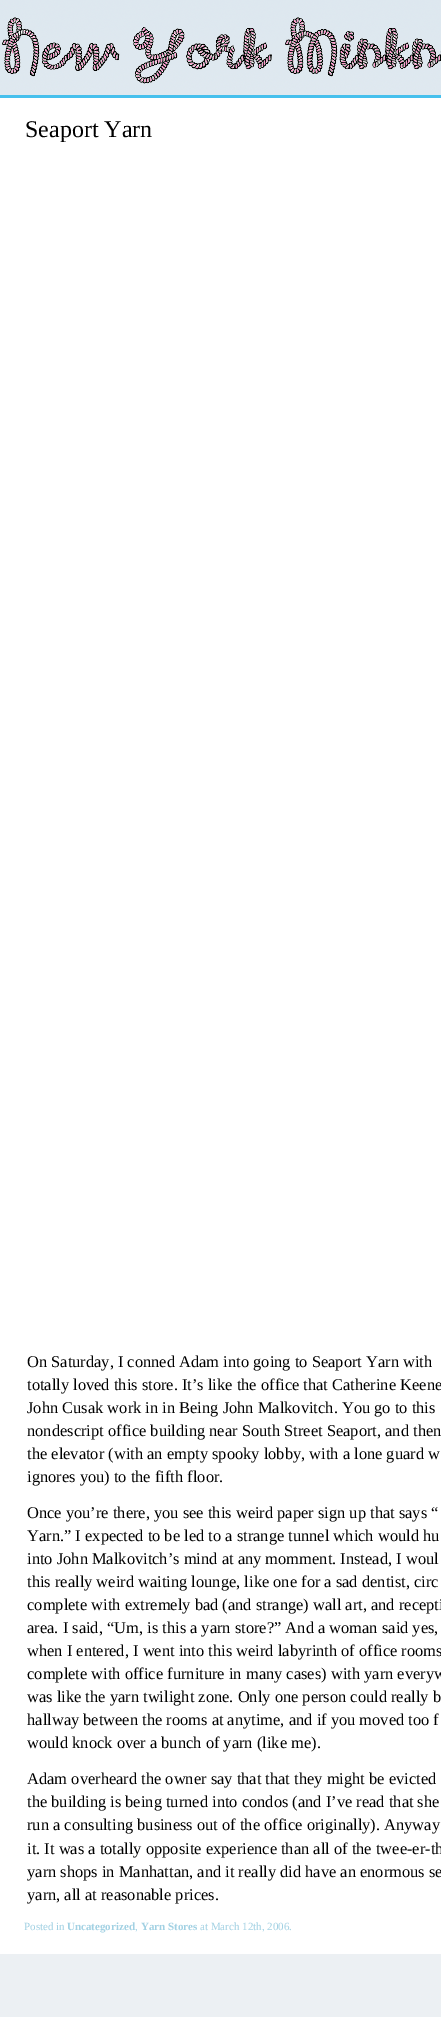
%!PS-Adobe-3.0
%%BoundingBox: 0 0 441 2017
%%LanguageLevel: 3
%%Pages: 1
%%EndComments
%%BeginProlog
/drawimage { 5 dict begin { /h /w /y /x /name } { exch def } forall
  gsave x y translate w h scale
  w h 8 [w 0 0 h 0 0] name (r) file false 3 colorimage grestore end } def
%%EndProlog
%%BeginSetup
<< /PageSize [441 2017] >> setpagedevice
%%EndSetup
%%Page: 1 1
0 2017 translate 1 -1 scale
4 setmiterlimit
0.925 0.941 0.953 setrgbcolor
0 0 441 2017 rectfill
(images/1.raw) 0 0 441 95 drawimage
(images/2.raw) 2 17 439 67 drawimage
1 setgray
0 98 441 1856 rectfill
0.275 0.753 0.929 setrgbcolor
0 95 441 3 rectfill
/LiberationSerif-Regular [24 0 0 -24 0 0] selectfont
0 setgray
25 137 moveto (Seaport Yarn) show
/LiberationSerif-Regular [16.45 0 0 -16.45 0 0] selectfont
27 1367 moveto (On Saturday, I conned Adam into going to Seaport Yarn with) show
27 1390 moveto (totally loved this store. It’s like the office that Catherine Keene) show
27 1413 moveto (John Cusak work in in Being John Malkovitch. You go to this) show
27 1436 moveto (nondescript office building near South Street Seaport, and then) show
27 1459 moveto (the elevator \(with an empty spooky lobby, with a lone guard w) show
27 1482 moveto (ignores you\) to the fifth floor.) show
27 1518 moveto (Once you’re there, you see this weird paper sign up that says “) show
27 1541 moveto (Yarn.” I expected to be led to a strange tunnel which would hu) show
27 1564 moveto (into John Malkovitch’s mind at any momment. Instead, I woul) show
27 1587 moveto (this really weird waiting lounge, like one for a sad dentist, circ) show
27 1610 moveto (complete with extremely bad \(and strange\) wall art, and recepti) show
27 1633 moveto (area. I said, “Um, is this a yarn store?” And a woman said yes,) show
27 1656 moveto (when I entered, I went into this weird labyrinth of office rooms) show
27 1679 moveto (complete with office furniture in many cases\) with yarn everyw) show
27 1702 moveto (was like the yarn twilight zone. Only one person could really b) show
27 1725 moveto (hallway between the rooms at anytime, and if you moved too f) show
27 1748 moveto (would knock over a bunch of yarn \(like me\).) show
27 1784 moveto (Adam overheard the owner say that that they might be evicted) show
27 1807 moveto (the building is being turned into condos \(and I’ve read that she) show
27 1830 moveto (run a consulting business out of the office originally\). Anyway) show
27 1854 moveto (it. It was a totally opposite experience than all of the twee-er-th) show
27 1877 moveto (yarn shops in Manhattan, and it really did have an enormous se) show
27 1900 moveto (yarn, all at reasonable prices.) show
/LiberationSerif-Regular [11 0 0 -11 0 0] selectfont
0.635 0.82 0.89 setrgbcolor
24 1930 moveto (Posted in) show
/LiberationSerif-Bold [11 0 0 -11 0 0] selectfont
67 1930 moveto (Uncategorized) show
/LiberationSerif-Regular [11 0 0 -11 0 0] selectfont
135 1930 moveto (,) show
/LiberationSerif-Bold [11 0 0 -11 0 0] selectfont
141 1930 moveto (Yarn Stores) show
/LiberationSerif-Regular [11 0 0 -11 0 0] selectfont
200 1930 moveto (at March 12th, 2006.) show
showpage
%%EOF
